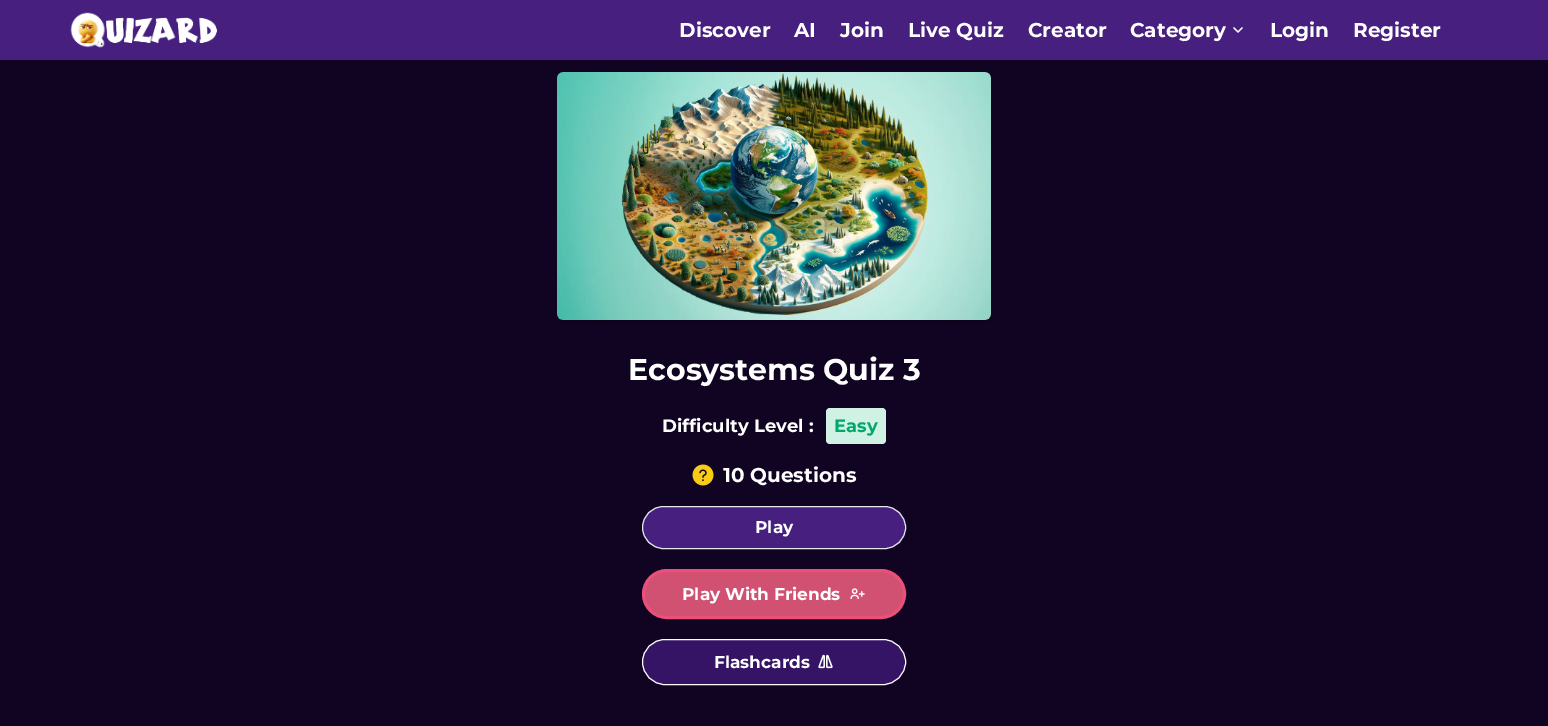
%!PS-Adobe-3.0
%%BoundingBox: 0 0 1548 726
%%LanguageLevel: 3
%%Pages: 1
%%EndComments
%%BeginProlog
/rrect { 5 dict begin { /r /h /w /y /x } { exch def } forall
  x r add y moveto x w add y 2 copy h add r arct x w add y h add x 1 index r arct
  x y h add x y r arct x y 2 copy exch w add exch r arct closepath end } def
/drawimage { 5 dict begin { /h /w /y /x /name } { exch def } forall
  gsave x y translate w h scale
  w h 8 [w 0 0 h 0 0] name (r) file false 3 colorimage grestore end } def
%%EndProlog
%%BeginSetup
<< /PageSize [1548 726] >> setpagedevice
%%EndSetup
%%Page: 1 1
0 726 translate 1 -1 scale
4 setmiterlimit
0.063 0.016 0.133 setrgbcolor
0 0 1548 726 rectfill
0.275 0.122 0.498 setrgbcolor
0 0 1548 60 rectfill
(images/1.raw) 70 12 147 36 drawimage
1 setgray
1.3 setlinewidth
1 setlinecap
1 setlinejoin
newpath 1234 28 moveto 1238 32 lineto 1242 28 lineto stroke
(images/2.raw) 557 72 434 252 drawimage
0.816 0.949 0.894 setrgbcolor
826 408 60 36 4 rrect fill
(images/3.raw) 692 464 22 22 drawimage
0.275 0.122 0.498 setrgbcolor
642.5 506.5 263 42 21 rrect gsave fill grestore
0.898 0.906 0.922 setrgbcolor
1 setlinewidth
0 setlinecap
0 setlinejoin
stroke
0.82 0.318 0.451 setrgbcolor
643.5 570.5 261 47 23.5 rrect gsave fill grestore
0.925 0.31 0.475 setrgbcolor
3 setlinewidth
stroke
(images/4.raw) 850 588 15 11 drawimage
0.208 0.078 0.4 setrgbcolor
642.5 639.5 263 45 22.5 rrect gsave fill grestore
1 setgray
1 setlinewidth
stroke
(images/5.raw) 818 654 15 15 drawimage
/Montserrat-Thin [20 0 0 -20 0 0] selectfont
679 37 moveto (Discover) show
794 37 moveto (AI) show
840 37 moveto (Join) show
908 37 moveto (Live Quiz) show
1028 37 moveto (Creator) show
1130 37 moveto (Category) show
1270 37 moveto (Login) show
1353 37 moveto (Register) show
/Montserrat-Thin [30 0 0 -30 0 0] selectfont
628 380 moveto (Ecosystems Quiz 3) show
/Montserrat-Thin [18 0 0 -18 0 0] selectfont
662 432 moveto (Difficulty Level :) show
0 0.659 0.42 setrgbcolor
834 432 moveto (Easy) show
/Montserrat-Thin [20 0 0 -20 0 0] selectfont
1 setgray
723 482 moveto (10 Questions) show
/Montserrat-Thin [17 0 0 -17 0 0] selectfont
755 533 moveto (Play) show
682 600 moveto (Play With Friends) show
714 668 moveto (Flashcards) show
showpage
%%EOF
